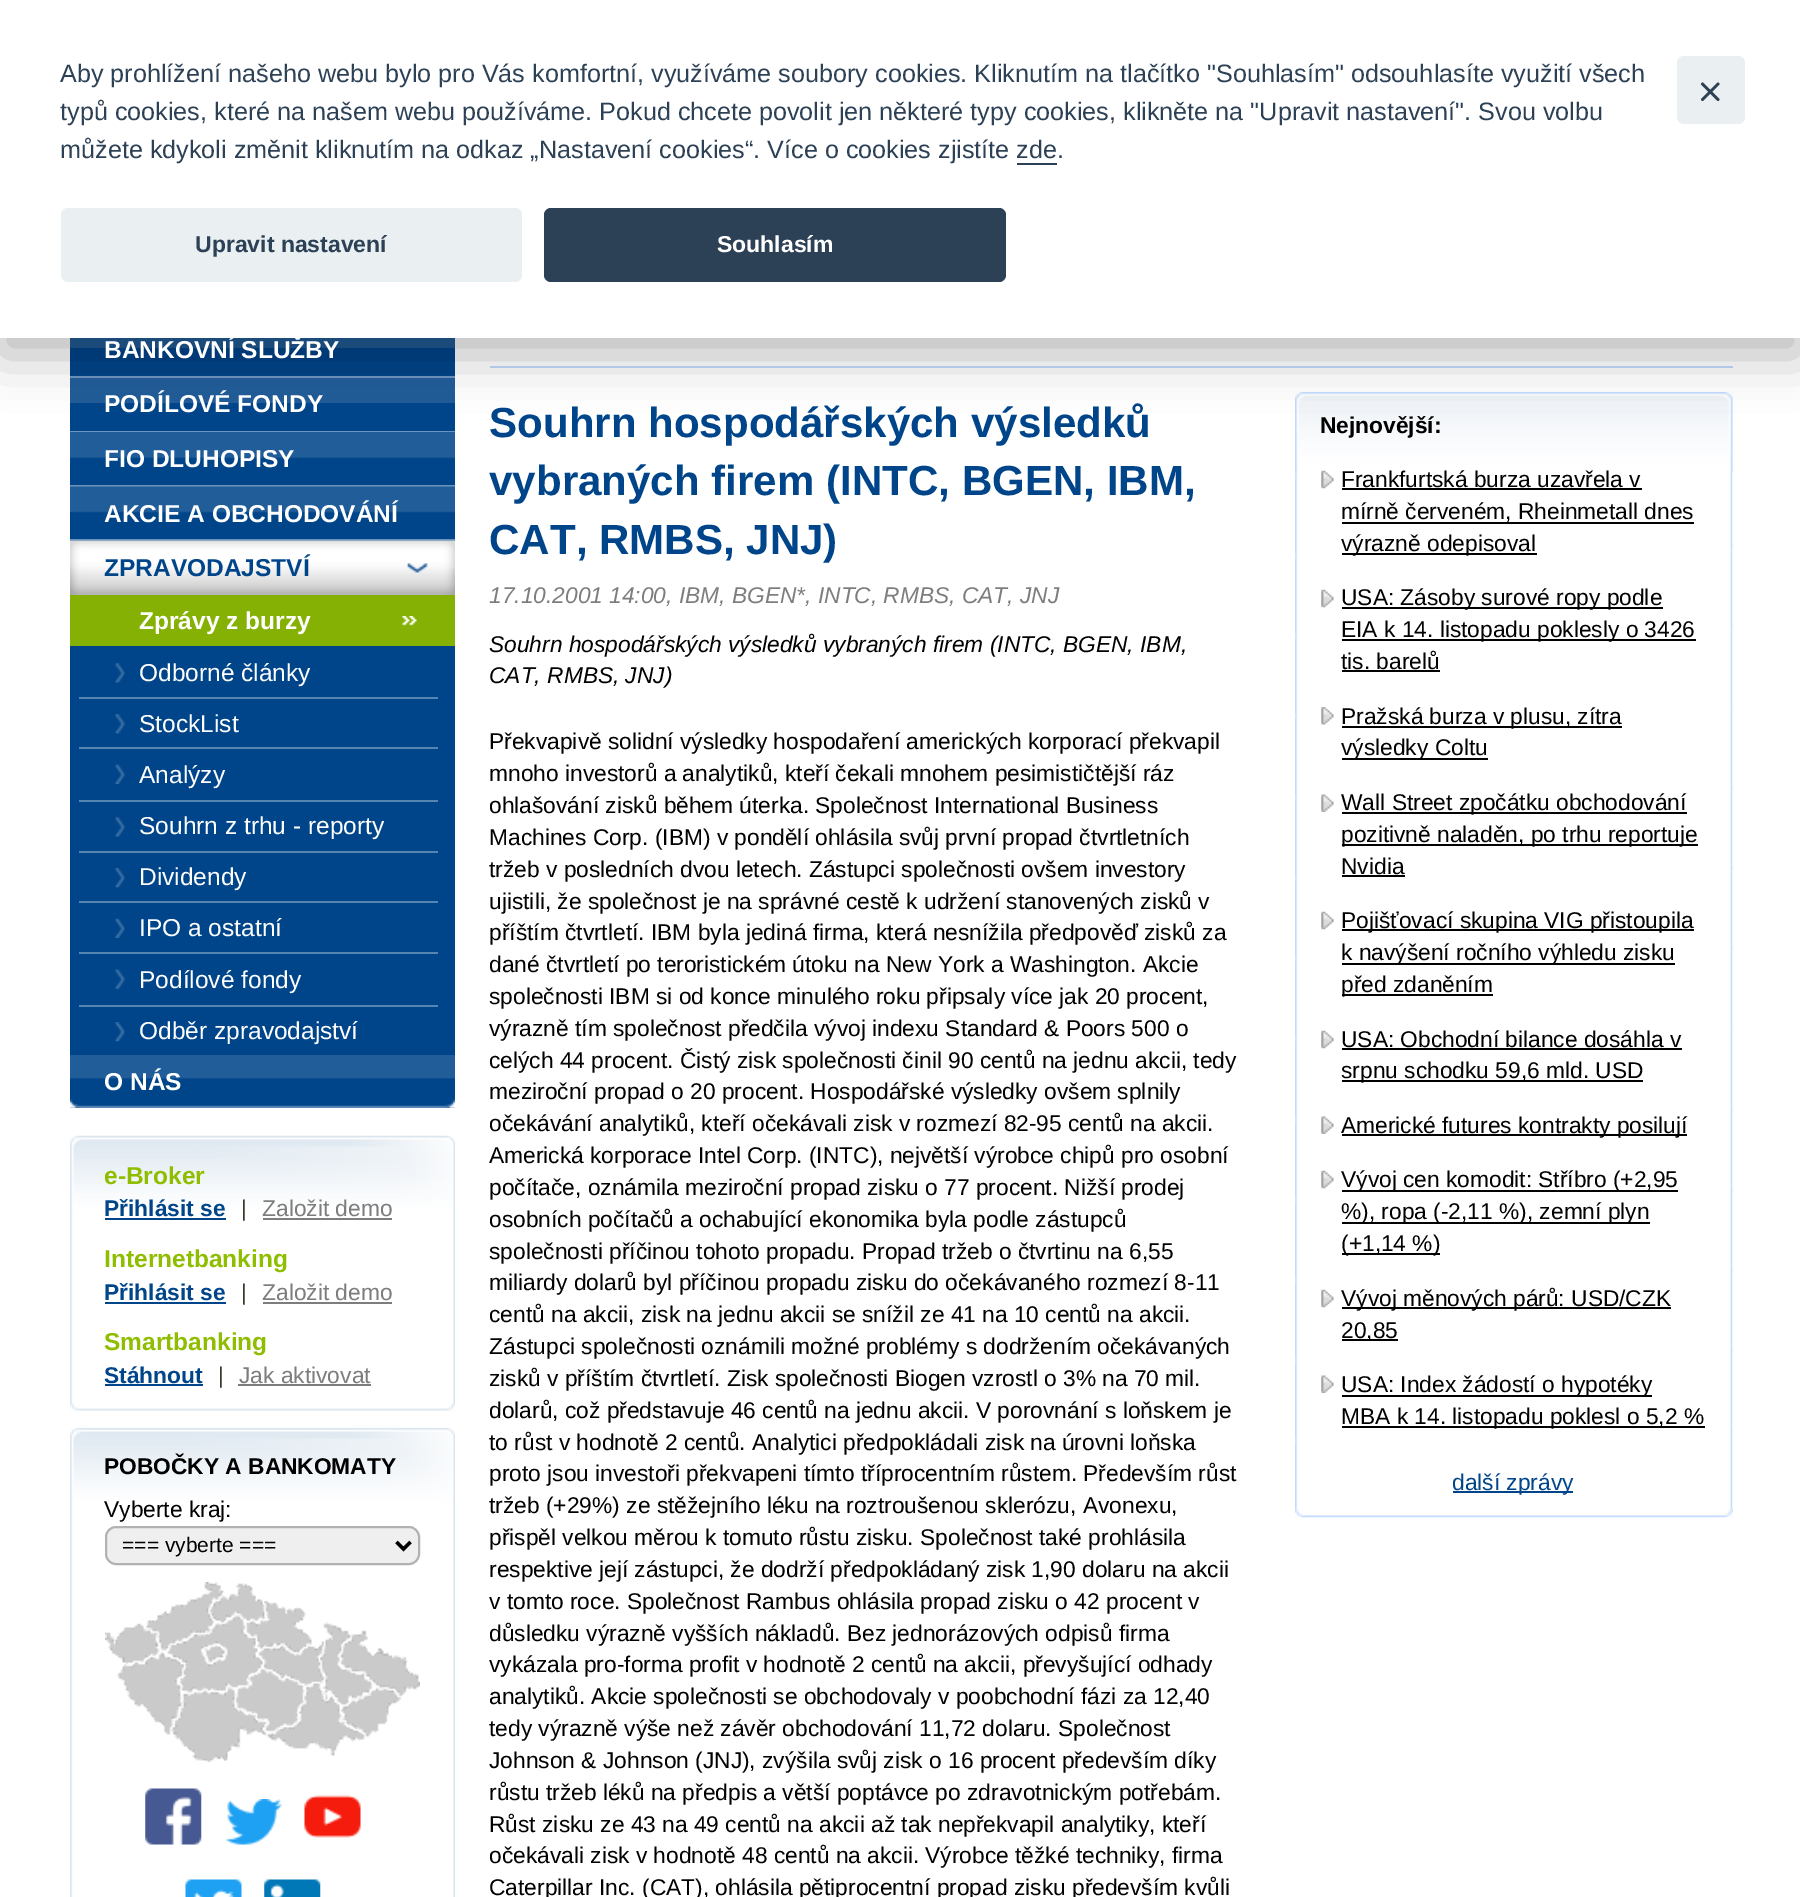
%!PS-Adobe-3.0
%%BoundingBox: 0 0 1800 1897
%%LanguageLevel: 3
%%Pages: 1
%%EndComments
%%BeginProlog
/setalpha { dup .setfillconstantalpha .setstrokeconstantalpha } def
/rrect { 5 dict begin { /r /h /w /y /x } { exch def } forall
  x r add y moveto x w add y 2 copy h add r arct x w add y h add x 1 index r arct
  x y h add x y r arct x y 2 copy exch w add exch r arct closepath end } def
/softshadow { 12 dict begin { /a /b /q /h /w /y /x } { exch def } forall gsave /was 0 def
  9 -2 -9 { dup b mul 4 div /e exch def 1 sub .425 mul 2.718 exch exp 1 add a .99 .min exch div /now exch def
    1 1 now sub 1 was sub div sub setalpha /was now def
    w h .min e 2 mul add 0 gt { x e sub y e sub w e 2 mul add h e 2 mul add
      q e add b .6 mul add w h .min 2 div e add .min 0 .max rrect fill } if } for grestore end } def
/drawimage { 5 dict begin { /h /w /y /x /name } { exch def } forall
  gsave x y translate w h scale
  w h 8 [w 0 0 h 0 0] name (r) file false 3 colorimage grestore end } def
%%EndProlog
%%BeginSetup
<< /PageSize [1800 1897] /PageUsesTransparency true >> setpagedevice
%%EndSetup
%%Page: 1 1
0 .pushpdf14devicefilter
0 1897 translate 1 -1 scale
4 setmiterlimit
1 setgray
0 0 1800 1897 rectfill
0.129 0.365 0.6 setrgbcolor
70 338 385 10 rectfill
0 0.271 0.541 setrgbcolor
70 348 385 28 rectfill
0.427 0.58 0.737 setrgbcolor
70 376 385 2 rectfill
0.129 0.365 0.6 setrgbcolor
70 378 385 25 rectfill
0 0.271 0.541 setrgbcolor
70 403 385 28 rectfill
0.427 0.58 0.737 setrgbcolor
70 431 385 1 rectfill
0.129 0.365 0.6 setrgbcolor
70 432 385 25 rectfill
0.761 0.859 0.992 setrgbcolor
490 366 1243 2 rectfill
(images/20.raw) 1295 392 438 1126 drawimage
(images/21.raw) 1295 392 438 81 drawimage
0.008 0.008 0.012 setrgbcolor
0 18 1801 337 0 26 0.28 softshadow
1 setgray
0 0 1800 338 rectfill
0.176 0.255 0.337 setrgbcolor
1017 163 40 2 rectfill
0.918 0.937 0.949 setrgbcolor
61 208 461 74 7 rrect fill
0.176 0.255 0.337 setrgbcolor
544 208 462 74 7 rrect fill
0.918 0.937 0.949 setrgbcolor
1677 56 68 68 7 rrect fill
0.176 0.255 0.337 setrgbcolor
newpath 1719 83 moveto 1719.5 83.5 1719.5 84.5 1719 85 curveto 1703.5 100.5 lineto 1703 101 1702 101 1701.5 100.5 curveto 1701 100 1701 99 1701.5 98.5 curveto 1717 83 lineto 1717.5 82.5 1718.5 82.5 1719 83 curveto closepath fill
newpath 1701.5 83 moveto 1702 82.5 1703 82.5 1703.5 83 curveto 1719 98.5 lineto 1719.5 99 1719.5 100 1719 100.5 curveto 1718.5 101 1717.5 101 1717 100.5 curveto 1701.5 85 lineto 1701 84.5 1701 83.5 1701.5 83 curveto closepath fill
(images/1.raw) 70 457 385 28 drawimage
0.427 0.58 0.737 setrgbcolor
70 485 385 2 rectfill
(images/2.raw) 70 486 385 53 drawimage
70 539 385 2 rectfill
(images/3.raw) 70 540 385 55 drawimage
(images/4.raw) 407 563 21 10 drawimage
0 0.271 0.541 setrgbcolor
70 646 385 409 rectfill
0.522 0.694 0.02 setrgbcolor
70 595 385 51 rectfill
(images/5.raw) 402 616 15 10 drawimage
(images/6.raw) 115 663 10 20 drawimage
0.341 0.518 0.698 setrgbcolor
79 697 359 2 rectfill
(images/7.raw) 115 714 10 20 drawimage
79 747 359 2 rectfill
(images/8.raw) 115 764 10 20 drawimage
79 800 359 2 rectfill
(images/6.raw) 115 817 10 20 drawimage
79 851 359 2 rectfill
(images/7.raw) 115 868 10 20 drawimage
79 901 359 2 rectfill
(images/8.raw) 115 918 10 20 drawimage
79 952 359 2 rectfill
(images/9.raw) 115 969 10 20 drawimage
79 1005 359 2 rectfill
(images/7.raw) 115 1022 10 20 drawimage
0.129 0.365 0.6 setrgbcolor
70 1055 385 53 rectfill
(images/10.raw) 70 1078 385 30 drawimage
(images/11.raw) 70 1135 385 276 drawimage
(images/12.raw) 70 1403 385 8 drawimage
0 0.271 0.541 setrgbcolor
105 1218 121 2 rectfill
0.49 setgray
263 1218 129 2 rectfill
0 0.271 0.541 setrgbcolor
105 1302 121 2 rectfill
0.49 setgray
263 1302 129 2 rectfill
0 0.271 0.541 setrgbcolor
105 1384 98 2 rectfill
0.49 setgray
238 1384 133 2 rectfill
(images/13.raw) 70 1428 385 469 drawimage
0.937 setgray
106 1527 313 37 10 rrect gsave fill grestore
0.698 setgray
2 setlinewidth
stroke
0 setgray
3.5 setlinewidth
newpath 396.5 1542 moveto 403.5 1549 lineto 410.5 1542 lineto stroke
0.792 setgray
106 1583 313 178 rectfill
(images/14.raw) 105 1582 315 180 drawimage
(images/15.raw) 145 1788 57 57 drawimage
(images/16.raw) 225 1799 57 46 drawimage
(images/17.raw) 304 1795 57 43 drawimage
(images/18.raw) 185 1879 57 18 drawimage
(images/19.raw) 264 1879 57 18 drawimage
(images/22.raw) 1295 1508 438 10 drawimage
(images/23.raw) 1321 470 13 19 drawimage
0 setgray
1342 488 300 2 rectfill
1342 522 352 2 rectfill
1342 553 195 2 rectfill
(images/23.raw) 1321 589 13 19 drawimage
1342 607 321 2 rectfill
1342 639 354 2 rectfill
1342 670 98 2 rectfill
(images/24.raw) 1321 707 13 18 drawimage
1342 726 280 2 rectfill
1342 758 146 2 rectfill
(images/25.raw) 1321 794 13 18 drawimage
1342 812 345 2 rectfill
1342 844 356 2 rectfill
1342 875 63 2 rectfill
(images/23.raw) 1321 911 13 19 drawimage
1342 929 352 2 rectfill
1342 963 333 2 rectfill
1342 994 151 2 rectfill
(images/23.raw) 1321 1030 13 19 drawimage
1342 1048 340 2 rectfill
1342 1080 301 2 rectfill
(images/25.raw) 1321 1116 13 18 drawimage
1342 1134 345 2 rectfill
(images/23.raw) 1321 1170 13 19 drawimage
1342 1190 336 2 rectfill
1342 1222 308 2 rectfill
1342 1253 98 2 rectfill
(images/23.raw) 1321 1289 13 19 drawimage
1342 1307 329 2 rectfill
1342 1339 56 2 rectfill
(images/25.raw) 1321 1375 13 18 drawimage
1342 1395 310 2 rectfill
1342 1426 363 2 rectfill
0 0.271 0.541 setrgbcolor
1453 1491 120 2 rectfill
/LiberationSans-Regular [25.2 0 0 -25.2 0 0] selectfont
0.176 0.255 0.337 setrgbcolor
60 82 moveto (Aby prohlížení našeho webu bylo pro Vás komfortní, využíváme soubory cookies. Kliknutím na tlačítko "Souhlasím" odsouhlasíte využití všech) show
60 120 moveto (typů cookies, které na našem webu používáme. Pokud chcete povolit jen některé typy cookies, klikněte na "Upravit nastavení". Svou volbu) show
60 158 moveto (můžete kdykoli změnit kliknutím na odkaz „Nastavení cookies“. Více o cookies zjistíte zde.) show
/LiberationSans-Bold [23 0 0 -23 0 0] selectfont
195 252 moveto (Upravit nastavení) show
1 setgray
717 252 moveto (Souhlasím) show
/LiberationSans-Bold [24.5 0 0 -24.5 0 0] selectfont
104 358 moveto (BANKOVNÍ SLUŽBY) show
104 412 moveto (PODÍLOVÉ FONDY) show
104 467 moveto (FIO DLUHOPISY) show
104 522 moveto (AKCIE A OBCHODOVÁNÍ) show
0 0.271 0.541 setrgbcolor
104 576 moveto (ZPRAVODAJSTVÍ) show
1 setgray
139 629 moveto (Zprávy z burzy) show
/LiberationSans-Regular [24.5 0 0 -24.5 0 0] selectfont
139 681 moveto (Odborné články) show
139 732 moveto (StockList) show
139 783 moveto (Analýzy) show
139 834 moveto (Souhrn z trhu - reporty) show
139 885 moveto (Dividendy) show
139 936 moveto (IPO a ostatní) show
139 988 moveto (Podílové fondy) show
139 1039 moveto (Odběr zpravodajství) show
/LiberationSans-Bold [24.5 0 0 -24.5 0 0] selectfont
104 1090 moveto (O NÁS) show
0.561 0.745 0 setrgbcolor
104 1184 moveto (e-Broker) show
/LiberationSans-Bold [22.75 0 0 -22.75 0 0] selectfont
0 0.271 0.541 setrgbcolor
104 1216 moveto (Přihlásit se) show
/LiberationSans-Regular [22.75 0 0 -22.75 0 0] selectfont
0.224 0.22 0.173 setrgbcolor
241 1216 moveto (|) show
0.49 setgray
262 1216 moveto (Založit demo) show
/LiberationSans-Bold [24.5 0 0 -24.5 0 0] selectfont
0.561 0.745 0 setrgbcolor
104 1267 moveto (Internetbanking) show
/LiberationSans-Bold [22.75 0 0 -22.75 0 0] selectfont
0 0.271 0.541 setrgbcolor
104 1300 moveto (Přihlásit se) show
/LiberationSans-Regular [22.75 0 0 -22.75 0 0] selectfont
0.224 0.22 0.173 setrgbcolor
241 1300 moveto (|) show
0.49 setgray
262 1300 moveto (Založit demo) show
/LiberationSans-Bold [24.5 0 0 -24.5 0 0] selectfont
0.561 0.745 0 setrgbcolor
104 1350 moveto (Smartbanking) show
/LiberationSans-Bold [22.75 0 0 -22.75 0 0] selectfont
0 0.271 0.541 setrgbcolor
104 1383 moveto (Stáhnout) show
/LiberationSans-Regular [22.75 0 0 -22.75 0 0] selectfont
0.224 0.22 0.173 setrgbcolor
218 1383 moveto (|) show
0.49 setgray
239 1383 moveto (Jak aktivovat) show
/LiberationSans-Bold [22.75 0 0 -22.75 0 0] selectfont
0 setgray
104 1474 moveto (POBOČKY A BANKOMATY) show
/LiberationSans-Regular [22.75 0 0 -22.75 0 0] selectfont
104 1517 moveto (Vyberte kraj:) show
gsave
123 1531 259 28 rectclip
/LiberationSans-Regular [21 0 0 -21 0 0] selectfont
122 1552 moveto (=== vyberte ===) show
grestore
/LiberationSans-Bold [42.1 0 0 -42.1 0 0] selectfont
0 0.271 0.541 setrgbcolor
489 437 moveto (Souhrn hospodářských výsledků) show
489 495 moveto (vybraných firem \(INTC, BGEN, IBM,) show
489 554 moveto (CAT, RMBS, JNJ\)) show
/LiberationSans-Italic [22.75 0 0 -22.75 0 0] selectfont
0.49 setgray
489 603 moveto (17.10.2001 14:00, IBM, BGEN*, INTC, RMBS, CAT, JNJ) show
0 setgray
489 652 moveto (Souhrn hospodářských výsledků vybraných firem \(INTC, BGEN, IBM,) show
489 683 moveto (CAT, RMBS, JNJ\)) show
/LiberationSans-Regular [22.75 0 0 -22.75 0 0] selectfont
489 749 moveto (Překvapivě solidní výsledky hospodaření amerických korporací překvapil) show
489 781 moveto (mnoho investorů a analytiků, kteří čekali mnohem pesimističtější ráz) show
489 813 moveto (ohlašování zisků během úterka. Společnost International Business) show
489 845 moveto (Machines Corp. \(IBM\) v pondělí ohlásila svůj první propad čtvrtletních) show
489 877 moveto (tržeb v posledních dvou letech. Zástupci společnosti ovšem investory) show
489 909 moveto (ujistili, že společnost je na správné cestě k udržení stanovených zisků v) show
489 940 moveto (příštím čtvrtletí. IBM byla jediná firma, která nesnížila předpověď zisků za) show
489 972 moveto (dané čtvrtletí po teroristickém útoku na New York a Washington. Akcie) show
489 1004 moveto (společnosti IBM si od konce minulého roku připsaly více jak 20 procent,) show
489 1036 moveto (výrazně tím společnost předčila vývoj indexu Standard & Poors 500 o) show
489 1068 moveto (celých 44 procent. Čistý zisk společnosti činil 90 centů na jednu akcii, tedy) show
489 1099 moveto (meziroční propad o 20 procent. Hospodářské výsledky ovšem splnily) show
489 1131 moveto (očekávání analytiků, kteří očekávali zisk v rozmezí 82-95 centů na akcii.) show
489 1163 moveto (Americká korporace Intel Corp. \(INTC\), největší výrobce chipů pro osobní) show
489 1195 moveto (počítače, oznámila meziroční propad zisku o 77 procent. Nižší prodej) show
489 1227 moveto (osobních počítačů a ochabující ekonomika byla podle zástupců) show
489 1259 moveto (společnosti příčinou tohoto propadu. Propad tržeb o čtvrtinu na 6,55) show
489 1290 moveto (miliardy dolarů byl příčinou propadu zisku do očekávaného rozmezí 8-11) show
489 1322 moveto (centů na akcii, zisk na jednu akcii se snížil ze 41 na 10 centů na akcii.) show
489 1354 moveto (Zástupci společnosti oznámili možné problémy s dodržením očekávaných) show
489 1386 moveto (zisků v příštím čtvrtletí. Zisk společnosti Biogen vzrostl o 3% na 70 mil.) show
489 1418 moveto (dolarů, což představuje 46 centů na jednu akcii. V porovnání s loňskem je) show
489 1450 moveto (to růst v hodnotě 2 centů. Analytici předpokládali zisk na úrovni loňska) show
489 1481 moveto (proto jsou investoři překvapeni tímto tříprocentním růstem. Především růst) show
489 1513 moveto (tržeb \(+29%\) ze stěžejního léku na roztroušenou sklerózu, Avonexu,) show
489 1545 moveto (přispěl velkou měrou k tomuto růstu zisku. Společnost také prohlásila) show
489 1577 moveto (respektive její zástupci, že dodrží předpokládaný zisk 1,90 dolaru na akcii) show
489 1609 moveto (v tomto roce. Společnost Rambus ohlásila propad zisku o 42 procent v) show
489 1641 moveto (důsledku výrazně vyšších nákladů. Bez jednorázových odpisů firma) show
489 1672 moveto (vykázala pro-forma profit v hodnotě 2 centů na akcii, převyšující odhady) show
489 1704 moveto (analytiků. Akcie společnosti se obchodovaly v poobchodní fázi za 12,40) show
489 1736 moveto (tedy výrazně výše než závěr obchodování 11,72 dolaru. Společnost) show
489 1768 moveto (Johnson & Johnson \(JNJ\), zvýšila svůj zisk o 16 procent především díky) show
489 1800 moveto (růstu tržeb léků na předpis a větší poptávce po zdravotnickým potřebám.) show
489 1832 moveto (Růst zisku ze 43 na 49 centů na akcii až tak nepřekvapil analytiky, kteří) show
489 1863 moveto (očekávali zisk v hodnotě 48 centů na akcii. Výrobce těžké techniky, firma) show
489 1895 moveto (Caterpillar Inc. \(CAT\), ohlásila pětiprocentní propad zisku především kvůli) show
/LiberationSans-Bold [22.75 0 0 -22.75 0 0] selectfont
1320 433 moveto (Nejnovější:) show
/LiberationSans-Regular [22.75 0 0 -22.75 0 0] selectfont
1341 487 moveto (Frankfurtská burza uzavřela v) show
1341 519 moveto (mírně červeném, Rheinmetall dnes) show
1341 551 moveto (výrazně odepisoval) show
1341 605 moveto (USA: Zásoby surové ropy podle) show
1341 637 moveto (EIA k 14. listopadu poklesly o 3426) show
1341 669 moveto (tis. barelů) show
1341 724 moveto (Pražská burza v plusu, zítra) show
1341 755 moveto (výsledky Coltu) show
1341 810 moveto (Wall Street zpočátku obchodování) show
1341 842 moveto (pozitivně naladěn, po trhu reportuje) show
1341 874 moveto (Nvidia) show
1341 928 moveto (Pojišťovací skupina VIG přistoupila) show
1341 960 moveto (k navýšení ročního výhledu zisku) show
1341 992 moveto (před zdaněním) show
1341 1047 moveto (USA: Obchodní bilance dosáhla v) show
1341 1078 moveto (srpnu schodku 59,6 mld. USD) show
1341 1133 moveto (Americké futures kontrakty posilují) show
1341 1187 moveto (Vývoj cen komodit: Stříbro \(+2,95) show
1341 1219 moveto (%\), ropa \(-2,11 %\), zemní plyn) show
1341 1251 moveto (\(+1,14 %\)) show
1341 1306 moveto (Vývoj měnových párů: USD/CZK) show
1341 1338 moveto (20,85) show
1341 1392 moveto (USA: Index žádostí o hypotéky) show
1341 1424 moveto (MBA k 14. listopadu poklesl o 5,2 %) show
0 0.271 0.541 setrgbcolor
1452 1490 moveto (další zprávy) show
.poppdf14devicefilter showpage
%%EOF
